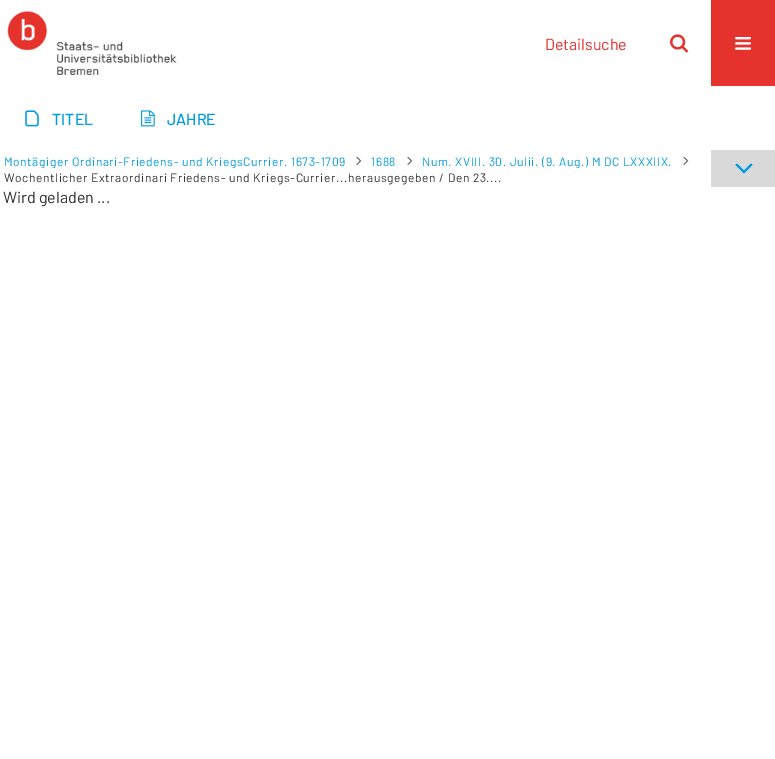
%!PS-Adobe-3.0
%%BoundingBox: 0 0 775 759
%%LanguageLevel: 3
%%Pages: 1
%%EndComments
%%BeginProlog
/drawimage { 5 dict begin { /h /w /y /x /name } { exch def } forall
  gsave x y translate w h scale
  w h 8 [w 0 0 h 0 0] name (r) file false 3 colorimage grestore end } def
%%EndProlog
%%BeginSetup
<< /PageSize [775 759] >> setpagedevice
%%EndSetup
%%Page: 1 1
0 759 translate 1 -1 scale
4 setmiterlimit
1 setgray
0 0 775 759 rectfill
(images/1.raw) 7 11 170 64 drawimage
(images/2.raw) 670 34 19 19 drawimage
0.898 0.196 0.176 setrgbcolor
711 0 64 86 rectfill
(images/3.raw) 735 37 16 13 drawimage
(images/4.raw) 25 110 14 17 drawimage
(images/5.raw) 141 110 14 17 drawimage
(images/6.raw) 356 156 6 9 drawimage
(images/6.raw) 407 156 6 9 drawimage
(images/6.raw) 683 156 6 9 drawimage
0.851 setgray
711 150 64 37 rectfill
(images/7.raw) 735 163 18 11 drawimage
/Barlow-Regular [16 0 0 -16 0 0] selectfont
0.898 0.196 0.176 setrgbcolor
545 50 moveto (Detailsuche) show
/Barlow-Medium [16 0 0 -16 0 0] selectfont
0 0.616 0.878 setrgbcolor
52 125 moveto (TITEL) show
167 125 moveto (JAHRE) show
gsave
4 154 342 14 rectclip
/Barlow-Regular [12 0 0 -12 0 0] selectfont
4 166 moveto 0.6 0 (Montägiger Ordinari-Friedens- und KriegsCurrier. 1673-1709) ashow
grestore
/Barlow-Regular [12 0 0 -12 0 0] selectfont
371 166 moveto 0.6 0 (1688) ashow
gsave
422 154 251 14 rectclip
422 166 moveto 0.6 0 (Num. XVIII. 30. Julii. \(9. Aug.\) M DC LXXXIIX.) ashow
grestore
0.2 setgray
4 182 moveto 0.6 0 (Wochentlicher Extraordinari Friedens- und Kriegs-Currier...herausgegeben / Den 23....) ashow
/Barlow-Regular [16 0 0 -16 0 0] selectfont
3 203 moveto (Wird geladen ...) show
showpage
%%EOF
